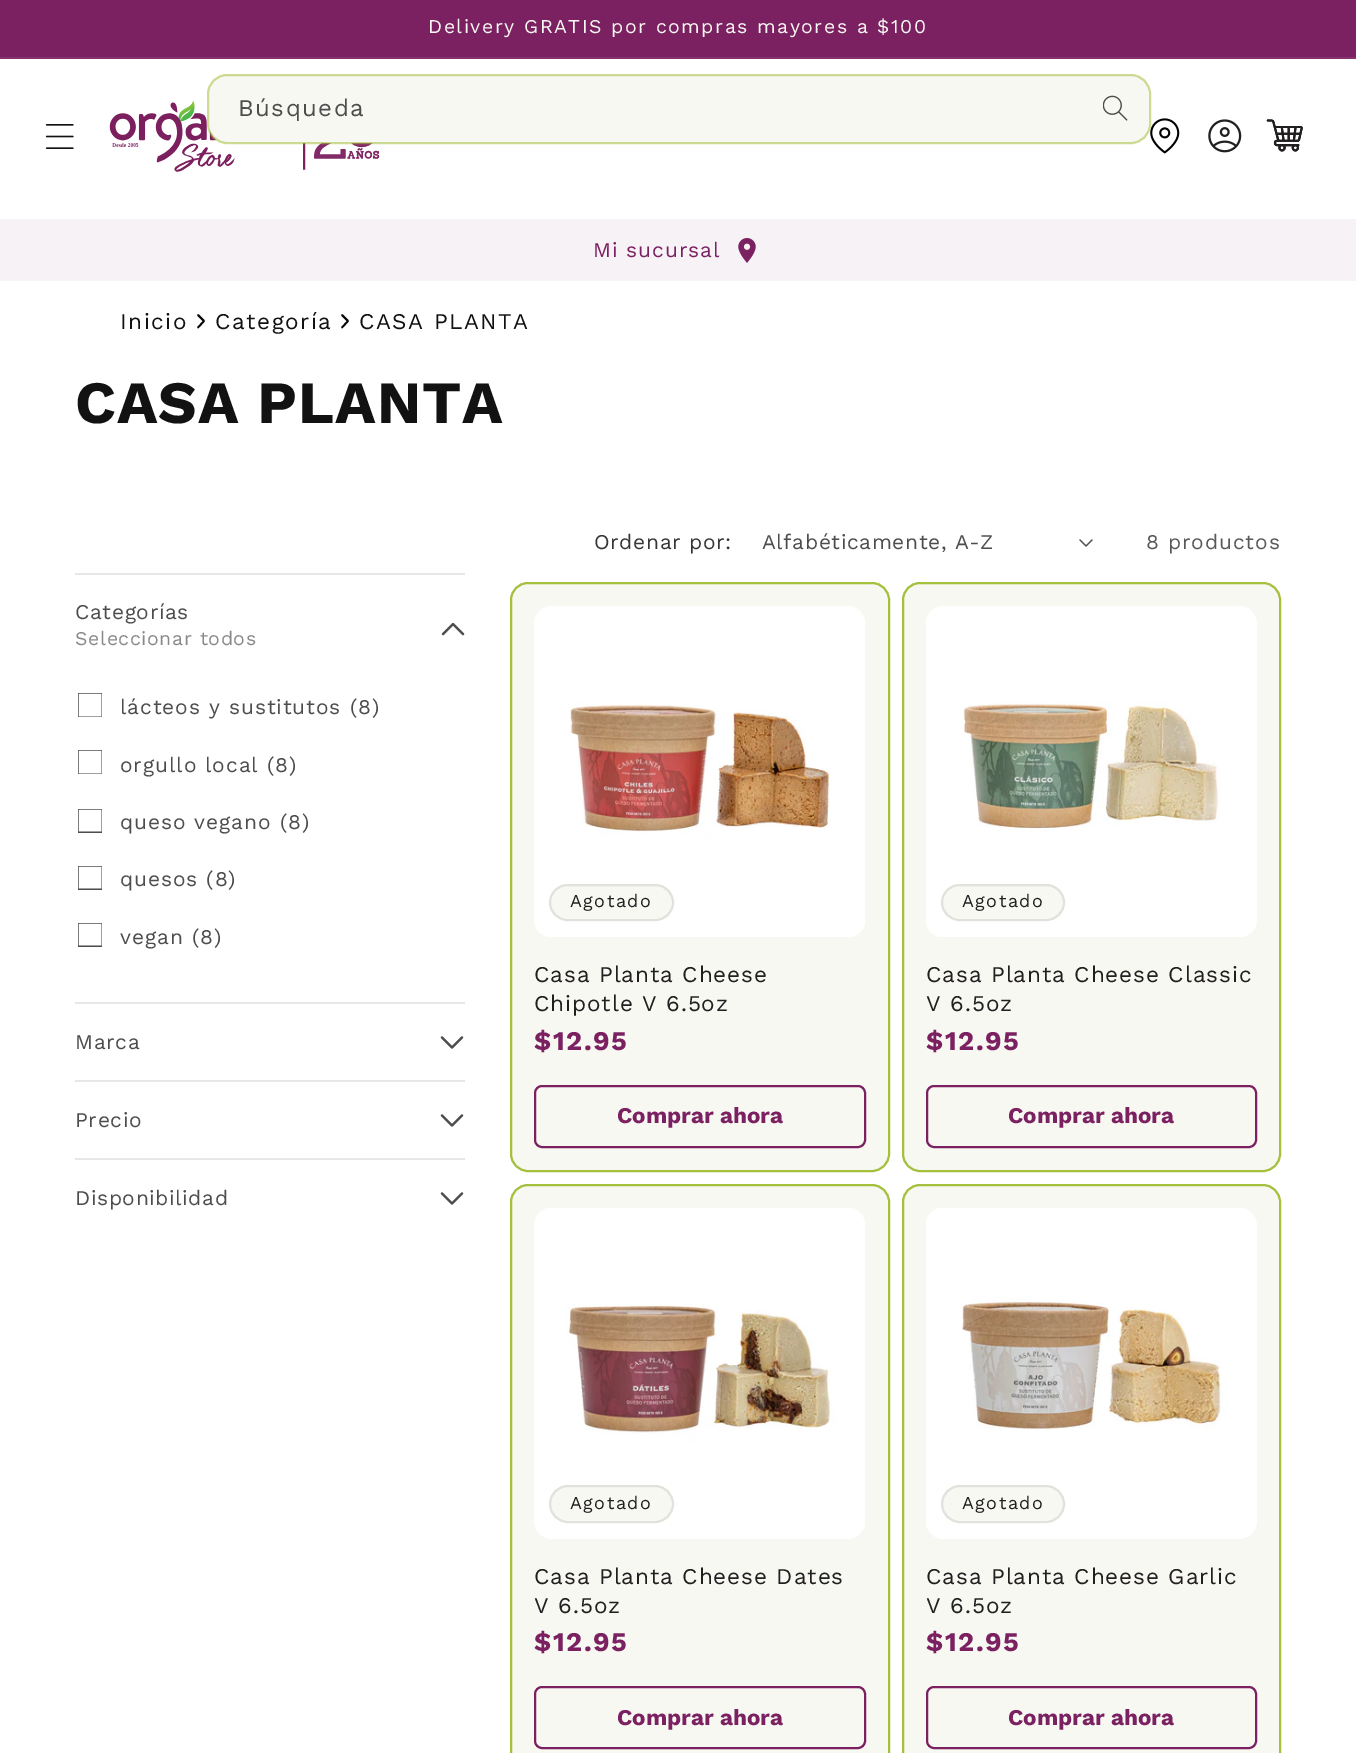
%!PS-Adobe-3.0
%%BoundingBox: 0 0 1356 1753
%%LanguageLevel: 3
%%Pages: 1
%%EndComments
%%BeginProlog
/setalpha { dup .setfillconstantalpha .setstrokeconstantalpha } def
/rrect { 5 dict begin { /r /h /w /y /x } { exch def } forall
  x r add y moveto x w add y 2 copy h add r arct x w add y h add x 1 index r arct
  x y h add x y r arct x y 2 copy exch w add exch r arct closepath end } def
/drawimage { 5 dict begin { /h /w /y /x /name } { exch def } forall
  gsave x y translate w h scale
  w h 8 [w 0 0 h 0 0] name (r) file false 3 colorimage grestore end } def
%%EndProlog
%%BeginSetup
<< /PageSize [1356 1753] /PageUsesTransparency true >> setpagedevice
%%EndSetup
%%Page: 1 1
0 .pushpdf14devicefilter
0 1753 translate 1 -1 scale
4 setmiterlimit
1 setgray
0 0 1356 1753 rectfill
0.482 0.129 0.384 setrgbcolor
0 0 1356 57 rectfill
0.522 0.196 0.431 setrgbcolor
0 57 1356 2 rectfill
(images/6.raw) 109 101 271 71 drawimage
0.973 0.973 0.953 setrgbcolor
209 75 940 68 18 rrect fill
(images/1.raw) 1103 95 25 26 drawimage
(images/2.raw) 1150 118 30 36 drawimage
0.55 setalpha
0.643 0.753 0.239 setrgbcolor
2 setlinewidth
208 75 942 68 19 rrect stroke
1 setalpha
(images/3.raw) 1208 119 34 34 drawimage
(images/4.raw) 1266 119 37 33 drawimage
(images/5.raw) 45 124 29 25 drawimage
0.969 0.949 0.965 setrgbcolor
0 219 1356 62 rectfill
(images/7.raw) 738 238 18 25 drawimage
0.035 0.024 0.02 setrgbcolor
1.8 setlinewidth
1 setlinecap
1 setlinejoin
newpath 198 315 moveto 204 321 lineto 198 327.5 lineto stroke
newpath 342 315 moveto 348 321 lineto 342 327.5 lineto stroke
(images/8.raw) 1079 539 14 8 drawimage
0.906 setgray
75 573 390 2 rectfill
(images/9.raw) 441 623 24 13 drawimage
gsave
78 693 24 24 rectclip
0.302 setgray
1.5 setlinewidth
0 setlinecap
0 setlinejoin
77.75 692.75 24.5 24.5 rectstroke
grestore
gsave
78 750 24 24 rectclip
0.302 setgray
1.5 setlinewidth
0 setlinecap
0 setlinejoin
77.75 749.75 24.5 24.5 rectstroke
grestore
gsave
78 809 24 24 rectclip
0.302 setgray
1.5 setlinewidth
0 setlinecap
0 setlinejoin
77.75 808.75 24.5 23.5 rectstroke
grestore
gsave
78 866 24 24 rectclip
0.302 setgray
1.5 setlinewidth
0 setlinecap
0 setlinejoin
77.75 865.75 24.5 23.5 rectstroke
grestore
gsave
78 923 24 24 rectclip
0.302 setgray
1.5 setlinewidth
0 setlinecap
0 setlinejoin
77.75 922.75 24.5 23.5 rectstroke
grestore
75 1002 390 2 rectfill
(images/10.raw) 440 1036 24 13 drawimage
75 1080 390 2 rectfill
(images/10.raw) 440 1114 24 13 drawimage
75 1158 390 2 rectfill
(images/10.raw) 440 1192 24 13 drawimage
0.973 0.973 0.953 setrgbcolor
511 583 378 588 17 rrect gsave fill grestore
0.643 0.753 0.239 setrgbcolor
2 setlinewidth
0 setlinecap
0 setlinejoin
stroke
(images/11.raw) 534 606 331 331 drawimage
0.973 0.973 0.953 setrgbcolor
549 884 125 37 18.5 rrect fill
0.1 setalpha
0.133 0.122 0.125 setrgbcolor
550 885 123 35 17.5 rrect stroke
1 setalpha
0.482 0.129 0.384 setrgbcolor
535 1086 330 61 7 rrect stroke
0.973 0.973 0.953 setrgbcolor
903 583 377 588 17 rrect gsave fill grestore
0.643 0.753 0.239 setrgbcolor
stroke
(images/12.raw) 926 606 331 331 drawimage
0.973 0.973 0.953 setrgbcolor
941 884 124 37 18.5 rrect fill
0.1 setalpha
0.133 0.122 0.125 setrgbcolor
942 885 122 35 17.5 rrect stroke
1 setalpha
0.482 0.129 0.384 setrgbcolor
927 1086 329 61 7 rrect stroke
0.973 0.973 0.953 setrgbcolor
511 1185 378 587 17 rrect gsave fill grestore
0.643 0.753 0.239 setrgbcolor
stroke
(images/13.raw) 534 1208 331 331 drawimage
0.973 0.973 0.953 setrgbcolor
549 1485 125 38 19 rrect fill
0.1 setalpha
0.133 0.122 0.125 setrgbcolor
550 1486 123 36 18 rrect stroke
1 setalpha
0.482 0.129 0.384 setrgbcolor
535 1687 330 61 7 rrect stroke
0.973 0.973 0.953 setrgbcolor
903 1185 377 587 17 rrect gsave fill grestore
0.643 0.753 0.239 setrgbcolor
stroke
(images/14.raw) 926 1208 331 331 drawimage
0.973 0.973 0.953 setrgbcolor
941 1485 124 38 19 rrect fill
0.1 setalpha
0.133 0.122 0.125 setrgbcolor
942 1486 122 36 18 rrect stroke
1 setalpha
0.482 0.129 0.384 setrgbcolor
927 1687 329 61 7 rrect stroke
/WorkSans-Regular [19.5 0 0 -19.5 0 0] selectfont
0.973 0.973 0.953 setrgbcolor
428 33 moveto 1.5 0 (Delivery GRATIS por compras mayores a $100) ashow
/WorkSans-Regular [24 0 0 -24 0 0] selectfont
0.302 setgray
238 116 moveto 1.5 0 (Búsqueda) ashow
/WorkSans-Regular [21 0 0 -21 0 0] selectfont
0.482 0.129 0.384 setrgbcolor
593 257 moveto 0.9 0 (Mi sucursal) ashow
/WorkSans-Regular [22.5 0 0 -22.5 0 0] selectfont
0.071 setgray
120 329 moveto 1.5 0 (Inicio) ashow
215 329 moveto 1.5 0 (Categoría) ashow
359 329 moveto 1.5 0 (CASA PLANTA) ashow
/WorkSans-Bold [60 0 0 -60 0 0] selectfont
75 423 moveto 0.9 0 (CASA PLANTA) ashow
/WorkSans-Regular [21 0 0 -21 0 0] selectfont
0.212 setgray
594 549 moveto 0.6 0 (Ordenar por:) ashow
0.302 setgray
762 549 moveto 0.6 0 (Alfabéticamente, A-Z) ashow
0.349 setgray
1146 549 moveto 0.9 0 (8 productos) ashow
0.302 setgray
75 619 moveto 0.6 0 (Categorías) ashow
/WorkSans-Regular [19.5 0 0 -19.5 0 0] selectfont
0.537 setgray
75 645 moveto 0.6 0 (Seleccionar todos) ashow
/WorkSans-Regular [21 0 0 -21 0 0] selectfont
0.302 setgray
120 714 moveto 0.9 0 (lácteos y sustitutos \(8\)) ashow
120 772 moveto 0.9 0 (orgullo local \(8\)) ashow
120 829 moveto 0.9 0 (queso vegano \(8\)) ashow
120 886 moveto 0.9 0 (quesos \(8\)) ashow
120 944 moveto 0.9 0 (vegan \(8\)) ashow
75 1049 moveto 0.6 0 (Marca) ashow
75 1127 moveto 0.6 0 (Precio) ashow
75 1205 moveto 0.6 0 (Disponibilidad) ashow
/WorkSans-Regular [18 0 0 -18 0 0] selectfont
0.133 0.122 0.125 setrgbcolor
570 907 moveto 1.5 0 (Agotado) ashow
/WorkSans-Regular [22.5 0 0 -22.5 0 0] selectfont
534 982 moveto 0.9 0 (Casa Planta Cheese) ashow
534 1011 moveto 0.9 0 (Chipotle V 6.5oz) ashow
/WorkSans-Bold [27 0 0 -27 0 0] selectfont
0.482 0.129 0.384 setrgbcolor
534 1050 moveto 1.5 0 ($12.95) ashow
/WorkSans-Bold [22.5 0 0 -22.5 0 0] selectfont
617 1123 moveto (Comprar ahora) show
/WorkSans-Regular [18 0 0 -18 0 0] selectfont
0.133 0.122 0.125 setrgbcolor
962 907 moveto 1.5 0 (Agotado) ashow
/WorkSans-Regular [22.5 0 0 -22.5 0 0] selectfont
926 982 moveto 0.9 0 (Casa Planta Cheese Classic) ashow
926 1011 moveto 0.9 0 (V 6.5oz) ashow
/WorkSans-Bold [27 0 0 -27 0 0] selectfont
0.482 0.129 0.384 setrgbcolor
926 1050 moveto 1.5 0 ($12.95) ashow
/WorkSans-Bold [22.5 0 0 -22.5 0 0] selectfont
1008 1123 moveto (Comprar ahora) show
/WorkSans-Regular [18 0 0 -18 0 0] selectfont
0.133 0.122 0.125 setrgbcolor
570 1509 moveto 1.5 0 (Agotado) ashow
/WorkSans-Regular [22.5 0 0 -22.5 0 0] selectfont
534 1584 moveto 0.9 0 (Casa Planta Cheese Dates) ashow
534 1613 moveto 0.9 0 (V 6.5oz) ashow
/WorkSans-Bold [27 0 0 -27 0 0] selectfont
0.482 0.129 0.384 setrgbcolor
534 1651 moveto 1.5 0 ($12.95) ashow
/WorkSans-Bold [22.5 0 0 -22.5 0 0] selectfont
617 1725 moveto (Comprar ahora) show
/WorkSans-Regular [18 0 0 -18 0 0] selectfont
0.133 0.122 0.125 setrgbcolor
962 1509 moveto 1.5 0 (Agotado) ashow
/WorkSans-Regular [22.5 0 0 -22.5 0 0] selectfont
926 1584 moveto 0.9 0 (Casa Planta Cheese Garlic) ashow
926 1613 moveto 0.9 0 (V 6.5oz) ashow
/WorkSans-Bold [27 0 0 -27 0 0] selectfont
0.482 0.129 0.384 setrgbcolor
926 1651 moveto 1.5 0 ($12.95) ashow
/WorkSans-Bold [22.5 0 0 -22.5 0 0] selectfont
1008 1725 moveto (Comprar ahora) show
.poppdf14devicefilter showpage
%%EOF
